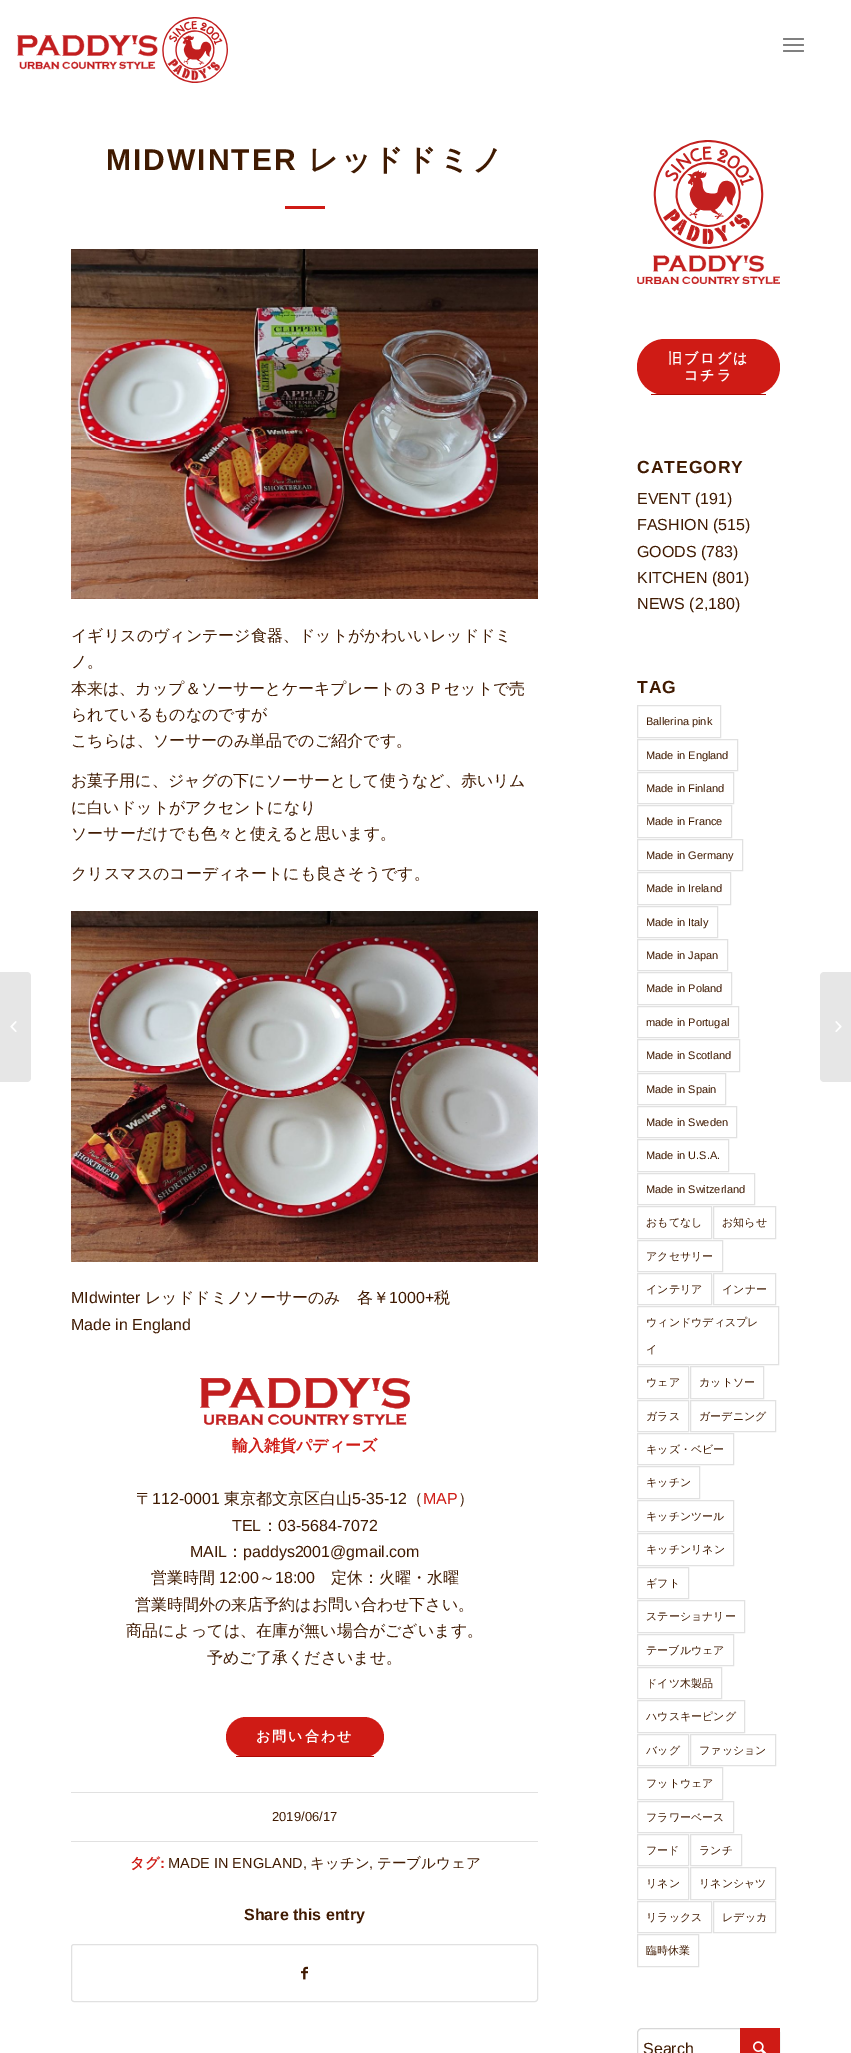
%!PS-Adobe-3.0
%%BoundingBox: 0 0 851 2053
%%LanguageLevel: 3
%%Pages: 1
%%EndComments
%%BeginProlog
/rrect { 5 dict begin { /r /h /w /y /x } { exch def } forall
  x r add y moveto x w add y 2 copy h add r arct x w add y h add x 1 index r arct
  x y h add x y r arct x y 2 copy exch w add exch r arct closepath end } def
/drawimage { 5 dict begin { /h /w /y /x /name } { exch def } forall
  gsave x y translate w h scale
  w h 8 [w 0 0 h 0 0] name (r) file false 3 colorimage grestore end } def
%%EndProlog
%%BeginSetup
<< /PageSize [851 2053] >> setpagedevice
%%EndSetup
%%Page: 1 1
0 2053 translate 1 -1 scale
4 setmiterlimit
1 setgray
0 0 851 2053 rectfill
(images/1.raw) 17 17 211 66 drawimage
0.502 setgray
783 44 21 2 1 rrect fill
783 38 21 2 1 rrect fill
783 50 21 2 1 rrect fill
0.902 setgray
newpath 0 972 moveto 27 972 lineto 29 972 31 974 31 976 curveto 31 1078 lineto 31 1080 29 1082 27 1082 curveto 0 1082 lineto closepath fill
(images/2.raw) 10 1021 7 11 drawimage
0.812 0.106 0.082 setrgbcolor
285 206 40 3 rectfill
(images/3.raw) 71 249 467 350 drawimage
(images/4.raw) 71 911 467 351 drawimage
(images/5.raw) 200 1378 210 47 drawimage
226 1717 158 40 20 rrect fill
0.678 0.035 0.012 setrgbcolor
236 1756 138 1 rectfill
0.882 setgray
71 1792 467 1 rectfill
71 1841 467 1 rectfill
71.5 1944.5 466 57 2.5 rrect stroke
(images/6.raw) 301 1966 7 14 drawimage
(images/7.raw) 637 140 143 144 drawimage
0.812 0.106 0.082 setrgbcolor
637 339 143 56 28 rrect fill
0.678 0.035 0.012 setrgbcolor
651 394 115 1 rectfill
0.882 setgray
637.5 705.5 83 32 rectstroke
637.5 739.5 100 31 rectstroke
637.5 772.5 96 31 rectstroke
637.5 805.5 94 32 rectstroke
637.5 839.5 105 31 rectstroke
637.5 872.5 93 32 rectstroke
637.5 906.5 80 31 rectstroke
637.5 939.5 90 31 rectstroke
637.5 972.5 94 32 rectstroke
637.5 1006.5 101 31 rectstroke
637.5 1039.5 102 32 rectstroke
637.5 1073.5 88 31 rectstroke
637.5 1106.5 99 31 rectstroke
637.5 1139.5 91 32 rectstroke
637.5 1173.5 117 31 rectstroke
637.5 1206.5 74 32 rectstroke
713.5 1206.5 62 32 rectstroke
637.5 1240.5 85 31 rectstroke
637.5 1273.5 74 31 rectstroke
713.5 1273.5 62 31 rectstroke
637.5 1306.5 141 58 rectstroke
637.5 1366.5 51 32 rectstroke
690.5 1366.5 73 32 rectstroke
637.5 1400.5 51 31 rectstroke
690.5 1400.5 85 31 rectstroke
637.5 1433.5 96 31 rectstroke
637.5 1466.5 62 32 rectstroke
637.5 1500.5 96 31 rectstroke
637.5 1533.5 96 32 rectstroke
637.5 1567.5 51 31 rectstroke
637.5 1600.5 107 32 rectstroke
637.5 1634.5 96 31 rectstroke
637.5 1667.5 84 31 rectstroke
637.5 1700.5 107 32 rectstroke
637.5 1734.5 51 31 rectstroke
690.5 1734.5 85 31 rectstroke
637.5 1767.5 85 32 rectstroke
637.5 1801.5 96 31 rectstroke
637.5 1834.5 51 31 rectstroke
690.5 1834.5 51 31 rectstroke
637.5 1867.5 51 32 rectstroke
690.5 1867.5 85 32 rectstroke
637.5 1901.5 74 31 rectstroke
713.5 1901.5 62 31 rectstroke
637.5 1934.5 61 32 rectstroke
0.843 setgray
637.5 2028.5 142 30 4.5 rrect stroke
0.812 0.106 0.082 setrgbcolor
740 2028 40 25 rectfill
(images/8.raw) 753 2041 14 12 drawimage
0.902 setgray
newpath 824 972 moveto 851 972 lineto 851 1082 lineto 824 1082 lineto 822 1082 820 1080 820 1078 curveto 820 976 lineto 820 974 822 972 824 972 curveto closepath fill
(images/9.raw) 835 1021 7 11 drawimage
/LiberationSans-Bold [30 0 0 -30 0 0] selectfont
0.251 0.102 0.004 setrgbcolor
106 170 moveto 2 0 (MIDWINTER) ashow
/WenQuanYiZenHei-Bold [30 0 0 -30 0 0] selectfont
308 170 moveto 2 0 (レッドドミノ) ashow
/WenQuanYiZenHei-Medium [16 0 0 -16 0 0] selectfont
71 641 moveto (イギリスのヴィンテージ食器、ドットがかわいいレッドドミ) show
71 667 moveto (ノ。) show
71 694 moveto (本来は、カップ＆ソーサーとケーキプレートの３Ｐセットで売) show
71 720 moveto (られているものなのですが) show
71 746 moveto (こちらは、ソーサーのみ単品でのご紹介です。) show
71 786 moveto (お菓子用に、ジャグの下にソーサーとして使うなど、赤いリム) show
71 813 moveto (に白いドットがアクセントになり) show
71 839 moveto (ソーサーだけでも色々と使えると思います。) show
71 879 moveto (クリスマスのコーディネートにも良さそうです。) show
/LiberationSans-Regular [16 0 0 -16 0 0] selectfont
71 1303 moveto (MIdwinter) show
/WenQuanYiZenHei-Medium [16 0 0 -16 0 0] selectfont
145 1303 moveto (レッドドミノソーサーのみ　各￥) show
/LiberationSans-Regular [16 0 0 -16 0 0] selectfont
389 1303 moveto (1000+) show
/WenQuanYiZenHei-Medium [16 0 0 -16 0 0] selectfont
434 1303 moveto (税) show
/LiberationSans-Regular [16 0 0 -16 0 0] selectfont
71 1330 moveto (Made in England) show
/WenQuanYiZenHei-Bold [16 0 0 -16 0 0] selectfont
0.812 0.106 0.082 setrgbcolor
232 1451 moveto (輸入雑貨パディーズ) show
/WenQuanYiZenHei-Medium [16 0 0 -16 0 0] selectfont
0.251 0.102 0.004 setrgbcolor
136 1504 moveto (〒) show
/LiberationSans-Regular [16 0 0 -16 0 0] selectfont
152 1504 moveto (112-0001) show
/WenQuanYiZenHei-Medium [16 0 0 -16 0 0] selectfont
224 1504 moveto (東京都文京区白山) show
/LiberationSans-Regular [16 0 0 -16 0 0] selectfont
352 1504 moveto (5-35-12) show
/WenQuanYiZenHei-Medium [16 0 0 -16 0 0] selectfont
407 1504 moveto (（) show
/LiberationSans-Regular [16 0 0 -16 0 0] selectfont
0.812 0.106 0.082 setrgbcolor
423 1504 moveto (MAP) show
/WenQuanYiZenHei-Medium [16 0 0 -16 0 0] selectfont
0.251 0.102 0.004 setrgbcolor
458 1504 moveto (）) show
/LiberationSans-Regular [16 0 0 -16 0 0] selectfont
232 1531 moveto (TEL) show
/WenQuanYiZenHei-Medium [16 0 0 -16 0 0] selectfont
262 1531 moveto (：) show
/LiberationSans-Regular [16 0 0 -16 0 0] selectfont
278 1531 moveto (03-5684-7072) show
190 1557 moveto (MAIL) show
/WenQuanYiZenHei-Medium [16 0 0 -16 0 0] selectfont
227 1557 moveto (：) show
/LiberationSans-Regular [16 0 0 -16 0 0] selectfont
243 1557 moveto (paddys2001@gmail.com) show
/WenQuanYiZenHei-Medium [16 0 0 -16 0 0] selectfont
151 1583 moveto (営業時間) show
/LiberationSans-Regular [16 0 0 -16 0 0] selectfont
219 1583 moveto (12:00) show
/WenQuanYiZenHei-Medium [16 0 0 -16 0 0] selectfont
259 1583 moveto (～) show
/LiberationSans-Regular [16 0 0 -16 0 0] selectfont
275 1583 moveto (18:00) show
/WenQuanYiZenHei-Medium [16 0 0 -16 0 0] selectfont
331 1583 moveto (定休：火曜・水曜) show
135 1610 moveto (営業時間外の来店予約はお問い合わせ下さい。) show
126 1636 moveto (商品によっては、在庫が無い場合がございます。) show
207 1663 moveto (予めご了承くださいませ。) show
/WenQuanYiZenHei-Bold [14 0 0 -14 0 0] selectfont
1 setgray
256 1741 moveto 2 0 (お問い合わせ) ashow
/LiberationSans-Regular [13 0 0 -13 0 0] selectfont
0.251 0.102 0.004 setrgbcolor
272 1821 moveto (2019/06/17) show
/WenQuanYiZenHei-Bold [14.5 0 0 -14.5 0 0] selectfont
0.812 0.106 0.082 setrgbcolor
130 1868 moveto (タグ) show
/LiberationSans-Bold [14.5 0 0 -14.5 0 0] selectfont
160 1868 moveto (:) show
/LiberationSans-Regular [14.5 0 0 -14.5 0 0] selectfont
0.251 0.102 0.004 setrgbcolor
168 1868 moveto (MADE IN ENGLAND,) show
/WenQuanYiZenHei-Medium [14.5 0 0 -14.5 0 0] selectfont
310 1868 moveto (キッチン) show
/LiberationSans-Regular [14.5 0 0 -14.5 0 0] selectfont
369 1868 moveto (,) show
/WenQuanYiZenHei-Medium [14.5 0 0 -14.5 0 0] selectfont
377 1868 moveto (テーブルウェア) show
/LiberationSans-Bold [16 0 0 -16 0 0] selectfont
244 1920 moveto (Share this entry) show
/WenQuanYiZenHei-Bold [14 0 0 -14 0 0] selectfont
1 setgray
668 363 moveto 2 0 (旧ブログは) ashow
684 380 moveto 2 0 (コチラ) ashow
/LiberationSans-Bold [17.5 0 0 -17.5 0 0] selectfont
0.251 0.102 0.004 setrgbcolor
637 473 moveto 1 0 (CATEGORY) ashow
/LiberationSans-Regular [16 0 0 -16 0 0] selectfont
637 504 moveto (EVENT \(191\)) show
637 530 moveto (FASHION \(515\)) show
637 557 moveto (GOODS \(783\)) show
637 583 moveto (KITCHEN \(801\)) show
637 609 moveto (NEWS \(2,180\)) show
/LiberationSans-Bold [17.5 0 0 -17.5 0 0] selectfont
637 693 moveto 1 0 (TAG) ashow
/LiberationSans-Regular [11 0 0 -11 0 0] selectfont
646 725 moveto (Ballerina pink) show
646 759 moveto (Made in England) show
646 792 moveto (Made in Finland) show
646 825 moveto (Made in France) show
646 859 moveto (Made in Germany) show
646 892 moveto (Made in Ireland) show
646 926 moveto (Made in Italy) show
646 959 moveto (Made in Japan) show
646 992 moveto (Made in Poland) show
646 1026 moveto (made in Portugal) show
646 1059 moveto (Made in Scotland) show
646 1093 moveto (Made in Spain) show
646 1126 moveto (Made in Sweden) show
646 1159 moveto (Made in U.S.A.) show
646 1193 moveto (Made in Switzerland) show
/WenQuanYiZenHei-Medium [11 0 0 -11 0 0] selectfont
646 1226 moveto (おもてなし) show
722 1226 moveto (お知らせ) show
646 1260 moveto (アクセサリー) show
646 1293 moveto (インテリア) show
722 1293 moveto (インナー) show
646 1326 moveto (ウィンドウディスプレ) show
646 1353 moveto (イ) show
646 1386 moveto (ウェア) show
699 1386 moveto (カットソー) show
646 1420 moveto (ガラス) show
699 1420 moveto (ガーデニング) show
646 1453 moveto (キッズ・ベビー) show
646 1486 moveto (キッチン) show
646 1520 moveto (キッチンツール) show
646 1553 moveto (キッチンリネン) show
646 1587 moveto (ギフト) show
646 1620 moveto (ステーショナリー) show
646 1654 moveto (テーブルウェア) show
646 1687 moveto (ドイツ木製品) show
646 1720 moveto (ハウスキーピング) show
646 1754 moveto (バッグ) show
699 1754 moveto (ファッション) show
646 1787 moveto (フットウェア) show
646 1821 moveto (フラワーベース) show
646 1854 moveto (フード) show
699 1854 moveto (ランチ) show
646 1887 moveto (リネン) show
699 1887 moveto (リネンシャツ) show
646 1921 moveto (リラックス) show
722 1921 moveto (レデッカ) show
646 1954 moveto (臨時休業) show
/LiberationSans-Regular [16 0 0 -16 0 0] selectfont
643 2054 moveto (Search) show
showpage
%%EOF
